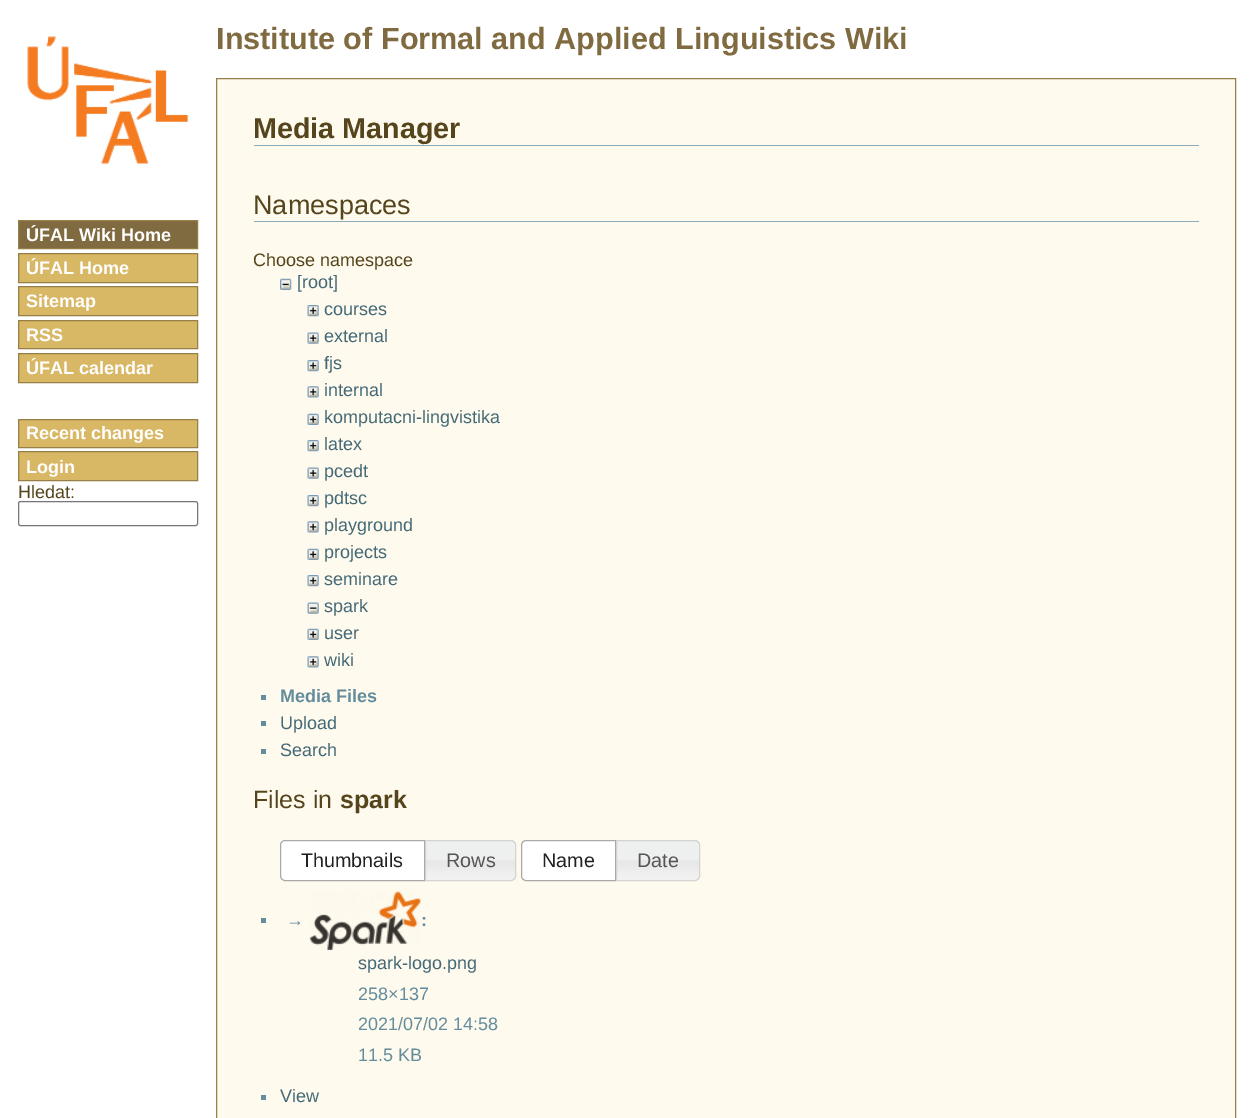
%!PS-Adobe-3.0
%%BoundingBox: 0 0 1253 1118
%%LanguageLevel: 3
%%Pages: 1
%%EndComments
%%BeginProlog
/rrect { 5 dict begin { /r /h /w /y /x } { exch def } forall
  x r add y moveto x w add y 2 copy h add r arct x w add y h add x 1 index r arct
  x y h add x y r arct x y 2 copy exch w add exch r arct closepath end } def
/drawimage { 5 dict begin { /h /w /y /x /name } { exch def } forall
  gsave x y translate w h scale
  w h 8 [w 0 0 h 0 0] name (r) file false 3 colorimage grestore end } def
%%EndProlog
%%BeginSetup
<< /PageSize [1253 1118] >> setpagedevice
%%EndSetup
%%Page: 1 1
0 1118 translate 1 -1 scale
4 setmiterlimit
1 setgray
0 0 1253 1118 rectfill
(images/1.raw) 27 36 161 129 drawimage
0.502 0.416 0.251 setrgbcolor
newpath 18.5 220.5 moveto 197.5 220.5 lineto 197.5 248.5 lineto 18.5 248.5 lineto closepath gsave fill grestore
0.592 0.502 0.278 setrgbcolor
stroke
0.847 0.718 0.396 setrgbcolor
newpath 18.5 253.5 moveto 197.5 253.5 lineto 197.5 282.5 lineto 18.5 282.5 lineto closepath gsave fill grestore
0.592 0.502 0.278 setrgbcolor
stroke
0.847 0.718 0.396 setrgbcolor
newpath 18.5 286.5 moveto 197.5 286.5 lineto 197.5 315.5 lineto 18.5 315.5 lineto closepath gsave fill grestore
0.592 0.502 0.278 setrgbcolor
stroke
0.847 0.718 0.396 setrgbcolor
newpath 18.5 320.5 moveto 197.5 320.5 lineto 197.5 348.5 lineto 18.5 348.5 lineto closepath gsave fill grestore
0.592 0.502 0.278 setrgbcolor
stroke
0.847 0.718 0.396 setrgbcolor
newpath 18.5 353.5 moveto 197.5 353.5 lineto 197.5 382.5 lineto 18.5 382.5 lineto closepath gsave fill grestore
0.592 0.502 0.278 setrgbcolor
stroke
0.847 0.718 0.396 setrgbcolor
newpath 18.5 419.5 moveto 197.5 419.5 lineto 197.5 447.5 lineto 18.5 447.5 lineto closepath gsave fill grestore
0.592 0.502 0.278 setrgbcolor
stroke
0.847 0.718 0.396 setrgbcolor
newpath 18.5 451.5 moveto 197.5 451.5 lineto 197.5 480.5 lineto 18.5 480.5 lineto closepath gsave fill grestore
0.592 0.502 0.278 setrgbcolor
stroke
0.463 setgray
18.5 501.5 179 24 2 rrect stroke
1 0.98 0.933 setrgbcolor
newpath 216.5 78.5 moveto 1235.5 78.5 lineto 1235.5 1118.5 lineto 216.5 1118.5 lineto closepath gsave fill grestore
0.592 0.502 0.278 setrgbcolor
stroke
0.549 0.675 0.733 setrgbcolor
254 145 945 1 rectfill
254 221 945 1 rectfill
(images/2.raw) 280 278 12 12 drawimage
(images/3.raw) 307 305 12 12 drawimage
(images/4.raw) 307 332 12 12 drawimage
(images/3.raw) 307 360 12 12 drawimage
(images/5.raw) 307 386 12 12 drawimage
(images/6.raw) 307 413 12 12 drawimage
(images/3.raw) 307 440 12 12 drawimage
(images/4.raw) 307 467 12 12 drawimage
(images/3.raw) 307 495 12 12 drawimage
(images/5.raw) 307 521 12 12 drawimage
(images/6.raw) 307 548 12 12 drawimage
(images/3.raw) 307 575 12 12 drawimage
(images/7.raw) 307 602 12 12 drawimage
(images/6.raw) 307 628 12 12 drawimage
(images/5.raw) 307 656 12 12 drawimage
0.388 0.549 0.612 setrgbcolor
261 695 5 5 rectfill
261 721 5 5 rectfill
261 749 5 5 rectfill
1 setgray
newpath 285 840 moveto 425 840 lineto 425 881 lineto 285 881 lineto 282 881 280 879 280 876 curveto 280 845 lineto 280 842 282 840 285 840 curveto closepath fill
(images/8.raw) 280 841 3 40 drawimage
0.667 setgray
newpath 285 840.5 moveto 424.5 840.5 lineto 424.5 880.5 lineto 285 880.5 lineto 282.5 880.5 280.5 878.5 280.5 876 curveto 280.5 845 lineto 280.5 842.5 282.5 840.5 285 840.5 curveto closepath stroke
(images/9.raw) 426 840 90 41 drawimage
0.827 setgray
newpath 425.5 840.5 moveto 511 840.5 lineto 513.5 840.5 515.5 842.5 515.5 845 curveto 515.5 876 lineto 515.5 878.5 513.5 880.5 511 880.5 curveto 425.5 880.5 lineto closepath stroke
1 setgray
newpath 526 840.5 moveto 615.5 840.5 lineto 615.5 880.5 lineto 526 880.5 lineto 523.5 880.5 521.5 878.5 521.5 876 curveto 521.5 845 lineto 521.5 842.5 523.5 840.5 526 840.5 curveto closepath gsave fill grestore
0.667 setgray
stroke
(images/10.raw) 617 840 83 41 drawimage
0.827 setgray
newpath 616.5 840.5 moveto 695 840.5 lineto 697.5 840.5 699.5 842.5 699.5 845 curveto 699.5 876 lineto 699.5 878.5 697.5 880.5 695 880.5 curveto 616.5 880.5 lineto closepath stroke
0.388 0.549 0.612 setrgbcolor
261 918 5 5 rectfill
(images/11.raw) 309 891 113 59 drawimage
261 1095 5 5 rectfill
/LiberationSans-Bold [30.6 0 0 -30.6 0 0] selectfont
0.502 0.416 0.251 setrgbcolor
216 49 moveto (Institute of Formal and Applied Linguistics Wiki) show
/LiberationSans-Bold [18 0 0 -18 0 0] selectfont
1 setgray
26 241 moveto (ÚFAL Wiki Home) show
26 274 moveto (ÚFAL Home) show
26 307 moveto (Sitemap) show
26 341 moveto (RSS) show
26 374 moveto (ÚFAL calendar) show
26 439 moveto (Recent changes) show
26 473 moveto (Login) show
/LiberationSans-Regular [18 0 0 -18 0 0] selectfont
0.333 0.271 0.11 setrgbcolor
18 498 moveto (Hledat:) show
/LiberationSans-Bold [28.75 0 0 -28.75 0 0] selectfont
253 138 moveto (Media Manager) show
/LiberationSans-Regular [27 0 0 -27 0 0] selectfont
253 214 moveto (Namespaces) show
/LiberationSans-Regular [18 0 0 -18 0 0] selectfont
253 266 moveto (Choose namespace) show
0.263 0.412 0.463 setrgbcolor
297 288 moveto ([root]) show
324 315 moveto (courses) show
324 342 moveto (external) show
324 369 moveto (fjs) show
324 396 moveto (internal) show
324 423 moveto (komputacni-lingvistika) show
324 450 moveto (latex) show
324 477 moveto (pcedt) show
324 504 moveto (pdtsc) show
324 531 moveto (playground) show
324 558 moveto (projects) show
324 585 moveto (seminare) show
324 612 moveto (spark) show
324 639 moveto (user) show
324 666 moveto (wiki) show
/LiberationSans-Bold [18 0 0 -18 0 0] selectfont
0.388 0.549 0.612 setrgbcolor
280 702 moveto (Media Files) show
/LiberationSans-Regular [18 0 0 -18 0 0] selectfont
0.263 0.412 0.463 setrgbcolor
280 729 moveto (Upload) show
280 756 moveto (Search) show
/LiberationSans-Regular [25 0 0 -25 0 0] selectfont
0.333 0.271 0.11 setrgbcolor
253 808 moveto (Files in) show
/LiberationSans-Bold [25 0 0 -25 0 0] selectfont
340 808 moveto (spark) show
/LiberationSans-Regular [19.75 0 0 -19.75 0 0] selectfont
0.129 setgray
301 867 moveto (Thumbnails) show
0.333 setgray
446 867 moveto (Rows) show
0.129 setgray
542 867 moveto (Name) show
0.333 setgray
637 867 moveto (Date) show
/LiberationSans-Bold [18 0 0 -18 0 0] selectfont
0.388 0.549 0.612 setrgbcolor
286 926 moveto (→) show
421 926 moveto (:) show
/LiberationSans-Regular [18 0 0 -18 0 0] selectfont
0.263 0.412 0.463 setrgbcolor
358 969 moveto (spark-logo.png) show
0.388 0.549 0.612 setrgbcolor
358 1000 moveto (258×137) show
358 1030 moveto (2021/07/02 14:58) show
358 1061 moveto (11.5 KB) show
0.263 0.412 0.463 setrgbcolor
280 1102 moveto (View) show
showpage
%%EOF
